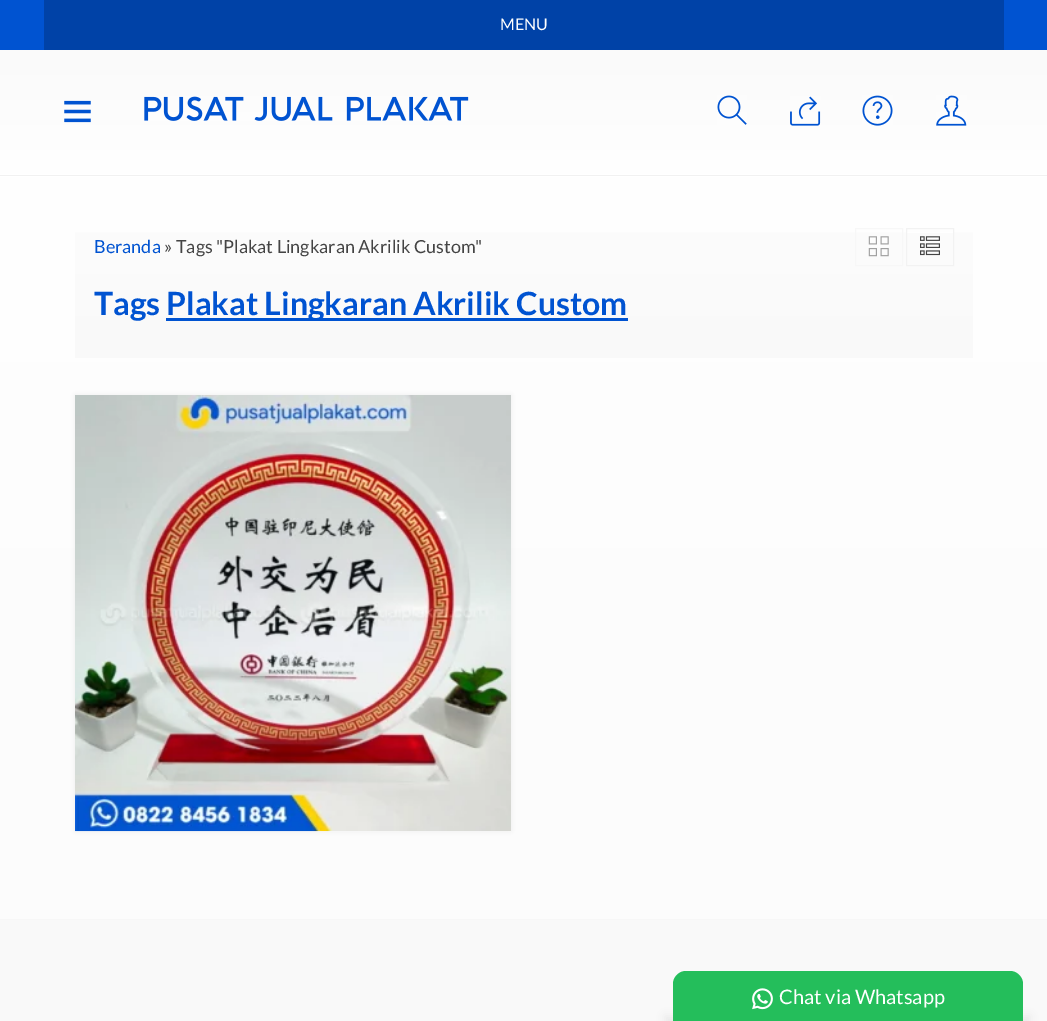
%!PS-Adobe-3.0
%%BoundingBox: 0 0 1047 1021
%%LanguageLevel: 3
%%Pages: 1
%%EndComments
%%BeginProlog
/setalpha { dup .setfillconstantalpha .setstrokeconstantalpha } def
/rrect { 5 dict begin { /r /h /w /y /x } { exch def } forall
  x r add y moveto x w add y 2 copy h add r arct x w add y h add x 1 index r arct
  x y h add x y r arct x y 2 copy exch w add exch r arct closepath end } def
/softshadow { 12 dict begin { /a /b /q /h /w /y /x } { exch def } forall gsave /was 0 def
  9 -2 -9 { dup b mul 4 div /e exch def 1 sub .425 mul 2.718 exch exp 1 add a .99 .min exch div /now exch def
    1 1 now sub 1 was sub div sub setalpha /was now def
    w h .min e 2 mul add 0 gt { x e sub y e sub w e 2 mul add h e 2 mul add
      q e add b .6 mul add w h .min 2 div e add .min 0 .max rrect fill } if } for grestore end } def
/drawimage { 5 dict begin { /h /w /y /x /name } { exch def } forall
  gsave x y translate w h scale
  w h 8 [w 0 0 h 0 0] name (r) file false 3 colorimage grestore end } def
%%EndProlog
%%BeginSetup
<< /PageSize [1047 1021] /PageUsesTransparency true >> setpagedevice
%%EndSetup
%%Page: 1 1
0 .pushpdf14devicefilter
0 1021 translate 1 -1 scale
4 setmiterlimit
0 0.325 0.82 setrgbcolor
0 0 1047 1021 rectfill
0 0.259 0.655 setrgbcolor
44 0 960 50 rectfill
gsave newpath 0 50 moveto 1047 50 lineto 1047 175 lineto 0 175 lineto closepath clip newpath
<< /ShadingType 2 /ColorSpace /DeviceRGB /Coords [524 50 524 175] /Extend [true true] /Function << /FunctionType 2 /Domain [0 1] /C0 [0.98 0.98 0.98] /C1 [1 1 1] /N 1 >> >> shfill grestore
0.945 setgray
0 175 1047 1 rectfill
(images/1.raw) 64 100 27 23 drawimage
(images/2.raw) 144 96 325 25 drawimage
(images/3.raw) 717 95 30 30 drawimage
(images/4.raw) 790 96 31 30 drawimage
(images/5.raw) 862 95 31 31 drawimage
(images/6.raw) 936 95 31 31 drawimage
gsave newpath 0 176 moveto 1047 176 lineto 1047 919 lineto 0 919 lineto closepath clip newpath
<< /ShadingType 2 /ColorSpace /DeviceRGB /Coords [524 919 524 176] /Extend [true true] /Function << /FunctionType 2 /Domain [0 1] /C0 [0.988 0.988 0.988] /C1 [1 1 1] /N 1 >> >> shfill grestore
0.969 setgray
0 919 1047 1 rectfill
gsave newpath 75 232 moveto 973 232 lineto 973 358 lineto 75 358 lineto closepath clip newpath
<< /ShadingType 2 /ColorSpace /DeviceRGB /Coords [524 358 524 214] /Extend [true true] /Function << /FunctionType 2 /Domain [0 1] /C0 [0.976 0.976 0.976] /C1 [0.992 0.992 0.992] /N 1 >> >> shfill grestore
855.5 228.5 47 37 rectstroke
gsave newpath 907 232 moveto 953 232 lineto 953 233 lineto 907 233 lineto closepath clip newpath
<< /ShadingType 2 /ColorSpace /DeviceRGB /Coords [930 265 930 229] /Extend [true true] /Function << /FunctionType 2 /Domain [0 1] /C0 [0.98 0.98 0.98] /C1 [1 1 1] /N 1 >> >> shfill grestore
0.949 setgray
906.5 228.5 47 37 rectstroke
(images/7.raw) 868 236 21 21 drawimage
(images/8.raw) 920 236 20 20 drawimage
0 0.325 0.82 setrgbcolor
166 318 462 3 rectfill
0.2 setgray
75 395 436 436 0 2 0.07 softshadow
(images/9.raw) 75 395 436 437 drawimage
0.976 setgray
0 920 1047 101 rectfill
0.2 setgray
665 1016 365 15 0 4 0.07 softshadow
0.141 0.745 0.357 setrgbcolor
newpath 686 971 moveto 1010 971 lineto 1017 971 1023 977 1023 984 curveto 1023 1021 lineto 673 1021 lineto 673 984 lineto 673 977 679 971 686 971 curveto closepath fill
(images/10.raw) 752 988 21 22 drawimage
/Lato-Regular [16 0 0 -16 0 0] selectfont
1 setgray
500 30 moveto (MENU) show
/Lato-Regular [18 0 0 -18 0 0] selectfont
0 0.325 0.82 setrgbcolor
94 253 moveto (Beranda) show
0.267 setgray
164 253 moveto (» Tags "Plakat Lingkaran Akrilik Custom") show
/Lato-Bold [32 0 0 -32 0 0] selectfont
0 0.325 0.82 setrgbcolor
94 315 moveto (Tags) show
166 315 moveto (Plakat Lingkaran Akrilik Custom) show
/Lato-Regular [20 0 0 -20 0 0] selectfont
1 setgray
779 1004 moveto (Chat via Whatsapp) show
.poppdf14devicefilter showpage
%%EOF
